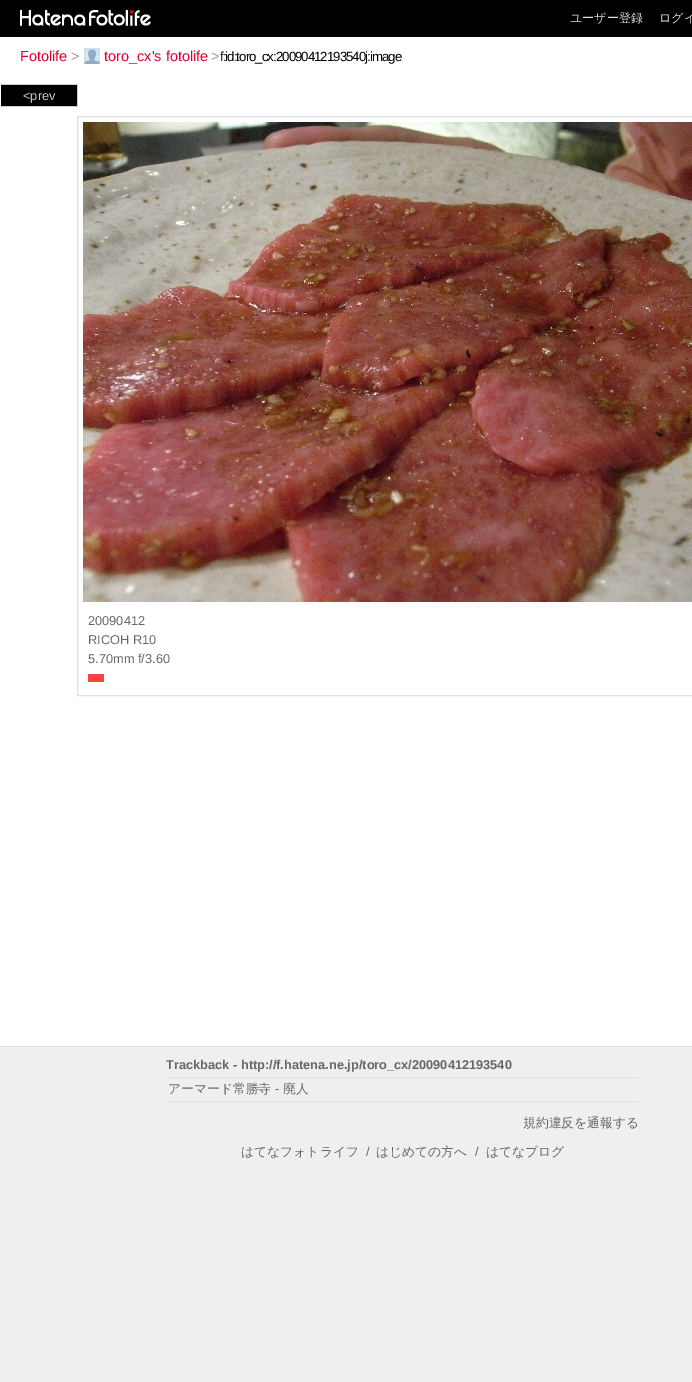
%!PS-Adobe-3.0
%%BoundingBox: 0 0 692 1382
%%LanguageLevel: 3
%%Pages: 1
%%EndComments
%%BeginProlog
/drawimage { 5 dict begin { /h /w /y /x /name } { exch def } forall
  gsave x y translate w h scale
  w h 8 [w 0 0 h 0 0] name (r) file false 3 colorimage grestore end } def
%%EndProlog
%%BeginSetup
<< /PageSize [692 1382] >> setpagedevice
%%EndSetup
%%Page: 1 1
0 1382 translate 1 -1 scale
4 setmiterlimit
0.937 setgray
0 0 692 1382 rectfill
0 setgray
0 0 692 37 rectfill
(images/1.raw) 20 10 66 16 drawimage
(images/2.raw) 89 10 62 16 drawimage
1 setgray
0 37 692 1009 rectfill
(images/3.raw) 84 48 16 16 drawimage
0.871 setgray
0 1046 692 1 rectfill
0 setgray
1 85 76 21 rectfill
0.8 setgray
1 84 77 1 rectfill
77 84 1 23 rectfill
1 106 77 1 rectfill
0.871 setgray
77.5 116.5 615 579 rectstroke
(images/4.raw) 83 122 609 480 drawimage
1 0.251 0.251 setrgbcolor
88 674 16 8 rectfill
0.882 setgray
166 1077 473 1 rectfill
166 1101 473 1 rectfill
/WenQuanYiZenHei-Medium [12 0 0 -12 0 0] selectfont
0.867 setgray
570 22 moveto (ユーザー登録) show
659 22 moveto (ログイ) show
/LiberationSans-Regular [14.5 0 0 -14.5 0 0] selectfont
0.871 0 0.184 setrgbcolor
20 61 moveto (Fotolife) show
0.6 setgray
71 61 moveto (>) show
0.871 0 0.184 setrgbcolor
104 61 moveto (toro_cx's fotolife) show
0.6 setgray
211 61 moveto (>) show
/LiberationSans-Regular [13.3 0 0 -13.3 0 0] selectfont
0 setgray
220 61 moveto -1 0 (f:id:toro_cx:20090412193540j:image) ashow
/LiberationSans-Regular [12.8 0 0 -12.8 0 0] selectfont
0.8 setgray
23 100 moveto (<prev) show
0.4 setgray
88 625 moveto (20090412) show
88 644 moveto (RICOH R10) show
88 663 moveto (5.70mm f/3.60) show
/LiberationSans-Bold [12.8 0 0 -12.8 0 0] selectfont
166 1069 moveto (Trackback - http://f.hatena.ne.jp/toro_cx/20090412193540) show
/WenQuanYiZenHei-Medium [12.8 0 0 -12.8 0 0] selectfont
168 1093 moveto (アーマード常勝寺) show
/LiberationSans-Regular [12.8 0 0 -12.8 0 0] selectfont
275 1093 moveto (-) show
/WenQuanYiZenHei-Medium [12.8 0 0 -12.8 0 0] selectfont
283 1093 moveto (廃人) show
523 1127 moveto (規約違反を通報する) show
241 1156 moveto (はてなフォトライフ) show
/LiberationSans-Regular [12.8 0 0 -12.8 0 0] selectfont
366 1156 moveto (/) show
/WenQuanYiZenHei-Medium [12.8 0 0 -12.8 0 0] selectfont
376 1156 moveto (はじめての方へ) show
/LiberationSans-Regular [12.8 0 0 -12.8 0 0] selectfont
475 1156 moveto (/) show
/WenQuanYiZenHei-Medium [12.8 0 0 -12.8 0 0] selectfont
486 1156 moveto (はてなブログ) show
showpage
%%EOF
